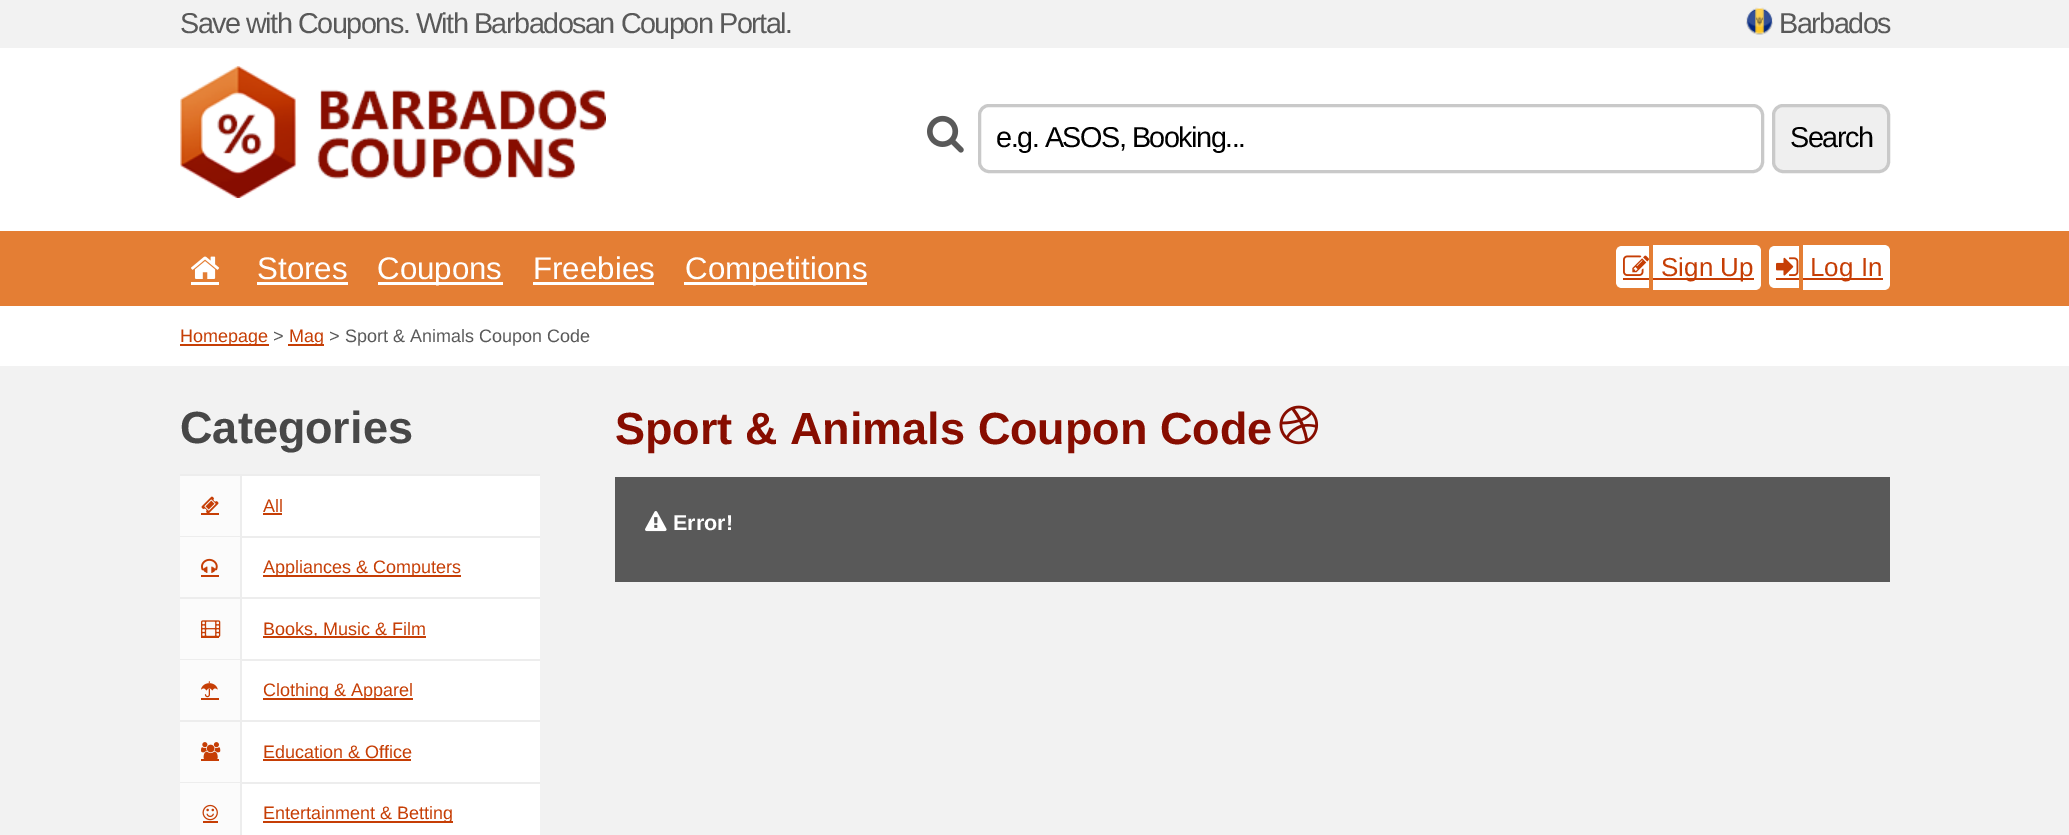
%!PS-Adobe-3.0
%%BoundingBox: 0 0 2069 835
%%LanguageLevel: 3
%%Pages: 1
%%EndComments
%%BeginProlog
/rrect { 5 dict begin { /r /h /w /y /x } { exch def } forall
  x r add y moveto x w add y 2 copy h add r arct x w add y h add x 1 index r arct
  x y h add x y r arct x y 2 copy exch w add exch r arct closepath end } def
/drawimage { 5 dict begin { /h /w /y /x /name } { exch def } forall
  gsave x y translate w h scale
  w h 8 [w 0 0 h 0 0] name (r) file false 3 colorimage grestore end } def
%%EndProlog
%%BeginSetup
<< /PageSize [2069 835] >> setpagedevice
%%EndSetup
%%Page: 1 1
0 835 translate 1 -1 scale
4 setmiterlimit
0.949 setgray
0 0 2069 835 rectfill
(images/1.raw) 1746 7 27 28 drawimage
1 setgray
0 48 2069 183 rectfill
(images/2.raw) 180 66 426 132 drawimage
(images/3.raw) 927 115 37 38 drawimage
0.788 setgray
3 setlinewidth
979.5 105.5 783 66 9.5 rrect stroke
0.937 setgray
1773.5 105.5 115 66 9.5 rrect gsave fill grestore
0.788 setgray
stroke
0.894 0.494 0.204 setrgbcolor
0 231 2069 75 rectfill
(images/4.raw) 191 256 29 23 drawimage
1 setgray
191 282 28 3 rectfill
257 282 91 3 rectfill
378 282 125 3 rectfill
533 282 121 3 rectfill
684 282 183 3 rectfill
newpath 1622 246 moveto 1649 246 lineto 1649 288 lineto 1622 288 lineto 1618.5 288 1616 285.5 1616 282 curveto 1616 252 lineto 1616 248.5 1618.5 246 1622 246 curveto closepath fill
(images/5.raw) 1623 255 26 21 drawimage
newpath 1653 245 moveto 1755 245 lineto 1758.5 245 1761 247.5 1761 251 curveto 1761 284 lineto 1761 287.5 1758.5 290 1755 290 curveto 1653 290 lineto closepath fill
0.776 0.243 0.02 setrgbcolor
1623 278 26 2 rectfill
1653 278 101 2 rectfill
1 setgray
newpath 1775 246 moveto 1799 246 lineto 1799 288 lineto 1775 288 lineto 1771.5 288 1769 285.5 1769 282 curveto 1769 252 lineto 1769 248.5 1771.5 246 1775 246 curveto closepath fill
(images/6.raw) 1776 257 23 19 drawimage
newpath 1803 245 moveto 1884 245 lineto 1887.5 245 1890 247.5 1890 251 curveto 1890 284 lineto 1890 287.5 1887.5 290 1884 290 curveto 1803 290 lineto closepath fill
0.776 0.243 0.02 setrgbcolor
1776 278 23 2 rectfill
1803 278 80 2 rectfill
1 setgray
0 306 2069 60 rectfill
0.776 0.243 0.02 setrgbcolor
180 344 89 2 rectfill
288 344 36 2 rectfill
1 setgray
242 476 298 60 rectfill
0.929 setgray
180 474 360 2 rectfill
0.984 setgray
180 476 60 60 rectfill
0.929 setgray
240 476 2 60 rectfill
(images/7.raw) 201 496 18 17 drawimage
0.776 0.243 0.02 setrgbcolor
201 513 18 2 rectfill
263 513 19 2 rectfill
1 setgray
242 538 298 59 rectfill
0.929 setgray
180 536 360 2 rectfill
0.984 setgray
180 537 60 60 rectfill
0.929 setgray
240 537 2 60 rectfill
(images/8.raw) 201 558 17 15 drawimage
0.776 0.243 0.02 setrgbcolor
201 575 18 2 rectfill
263 575 198 2 rectfill
1 setgray
242 599 298 60 rectfill
0.929 setgray
180 597 360 2 rectfill
0.984 setgray
180 599 60 60 rectfill
0.929 setgray
240 599 2 60 rectfill
0.776 0.243 0.02 setrgbcolor
201 636 18 2 rectfill
(images/9.raw) 201 620 20 17 drawimage
263 636 163 2 rectfill
1 setgray
242 661 298 59 rectfill
0.929 setgray
180 659 360 2 rectfill
0.984 setgray
180 660 60 60 rectfill
0.929 setgray
240 660 2 60 rectfill
(images/10.raw) 201 681 17 17 drawimage
0.776 0.243 0.02 setrgbcolor
201 698 18 2 rectfill
263 698 150 2 rectfill
1 setgray
242 722 298 60 rectfill
0.929 setgray
180 720 360 2 rectfill
0.984 setgray
180 722 60 60 rectfill
0.929 setgray
240 722 2 60 rectfill
(images/11.raw) 201 742 20 17 drawimage
0.776 0.243 0.02 setrgbcolor
201 759 18 2 rectfill
263 759 148 2 rectfill
1 setgray
242 784 298 51 rectfill
0.929 setgray
180 782 360 2 rectfill
0.984 setgray
180 783 60 52 rectfill
0.929 setgray
240 783 2 52 rectfill
(images/12.raw) 202 804 16 17 drawimage
0.776 0.243 0.02 setrgbcolor
203 821 15 2 rectfill
263 821 190 2 rectfill
(images/13.raw) 1279 405 40 40 drawimage
0.349 setgray
615 477 1275 105 rectfill
(images/14.raw) 645 511 22 21 drawimage
/LiberationSans-Regular [28.8 0 0 -28.8 0 0] selectfont
180 33 moveto -1.5 0 (Save with Coupons. With Barbadosan Coupon Portal.) ashow
1779 33 moveto -1.5 0 (Barbados) ashow
0 setgray
996 147 moveto -1.5 0 (e.g. ASOS, Booking...) ashow
1790 147 moveto -1.5 0 (Search) ashow
/LiberationSans-Regular [31.25 0 0 -31.25 0 0] selectfont
1 setgray
257 279 moveto (Stores) show
377 279 moveto (Coupons) show
533 279 moveto (Freebies) show
685 279 moveto (Competitions) show
/LiberationSans-Regular [26 0 0 -26 0 0] selectfont
0.776 0.243 0.02 setrgbcolor
1661 276 moveto (Sign Up) show
1810 276 moveto (Log In) show
/LiberationSans-Regular [18 0 0 -18 0 0] selectfont
180 342 moveto (Homepage) show
0.349 setgray
273 342 moveto (>) show
0.776 0.243 0.02 setrgbcolor
289 342 moveto (Mag) show
0.349 setgray
329 342 moveto (> Sport & Animals Coupon Code) show
/LiberationSans-Bold [45 0 0 -45 0 0] selectfont
0.278 setgray
180 443 moveto (Categories) show
/LiberationSans-Regular [18 0 0 -18 0 0] selectfont
0.776 0.243 0.02 setrgbcolor
263 512 moveto (All) show
263 573 moveto (Appliances & Computers) show
263 635 moveto (Books, Music & Film) show
263 696 moveto (Clothing & Apparel) show
263 758 moveto (Education & Office) show
263 819 moveto (Entertainment & Betting) show
/LiberationSans-Bold [45 0 0 -45 0 0] selectfont
0.529 0.051 0 setrgbcolor
615 444 moveto (Sport & Animals Coupon Code) show
/LiberationSans-Bold [21.5 0 0 -21.5 0 0] selectfont
1 setgray
673 530 moveto (Error!) show
showpage
%%EOF
